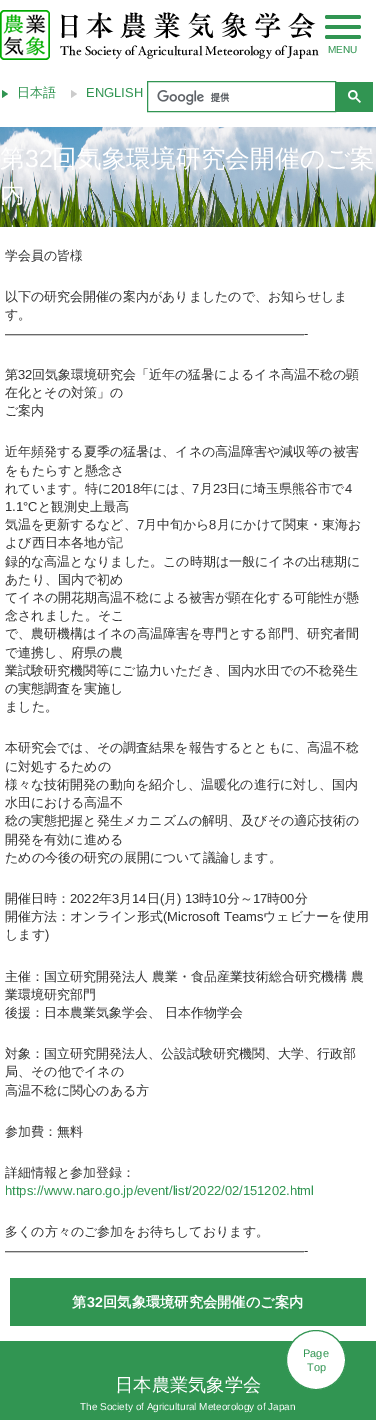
%!PS-Adobe-3.0
%%BoundingBox: 0 0 376 1420
%%LanguageLevel: 3
%%Pages: 1
%%EndComments
%%BeginProlog
/rrect { 5 dict begin { /r /h /w /y /x } { exch def } forall
  x r add y moveto x w add y 2 copy h add r arct x w add y h add x 1 index r arct
  x y h add x y r arct x y 2 copy exch w add exch r arct closepath end } def
/drawimage { 5 dict begin { /h /w /y /x /name } { exch def } forall
  gsave x y translate w h scale
  w h 8 [w 0 0 h 0 0] name (r) file false 3 colorimage grestore end } def
%%EndProlog
%%BeginSetup
<< /PageSize [376 1420] >> setpagedevice
%%EndSetup
%%Page: 1 1
0 1420 translate 1 -1 scale
4 setmiterlimit
1 setgray
0 0 376 1420 rectfill
0.192 0.584 0.322 setrgbcolor
325 15 36 4 2 rrect fill
325 25 36 4 2 rrect fill
325 35 36 4 2 rrect fill
(images/1.raw) 0 10 50 50 drawimage
(images/2.raw) 60 12 259 47 drawimage
newpath 2 98 moveto 2 90 lineto 8 94 lineto closepath fill
0.8 setgray
newpath 71 98 moveto 71 90 lineto 77 94 lineto closepath fill
0.192 0.584 0.322 setrgbcolor
147.5 81.5 188 30 rectstroke
(images/3.raw) 157 90 73 15 drawimage
336 82 37 30 rectfill
(images/4.raw) 348 90 13 13 drawimage
(images/5.raw) 0 127 376 100 drawimage
10 1278 356 48 rectfill
0 1341 376 79 rectfill
1 setgray
newpath 316 1360 29.5 0 360 arc closepath gsave fill grestore
0.192 0.584 0.322 setrgbcolor
stroke
/LiberationSans-Regular [10 0 0 -10 0 0] selectfont
328 53 moveto (MENU) show
/WenQuanYiZenHei-Medium [13 0 0 -13 0 0] selectfont
17 97 moveto (日本語) show
/LiberationSans-Regular [13 0 0 -13 0 0] selectfont
86 97 moveto (ENGLISH) show
/WenQuanYiZenHei-Medium [24.75 0 0 -24.75 0 0] selectfont
1 setgray
0 167 moveto (第) show
/LiberationSans-Regular [24.75 0 0 -24.75 0 0] selectfont
25 167 moveto (32) show
/WenQuanYiZenHei-Medium [24.75 0 0 -24.75 0 0] selectfont
52 167 moveto (回気象環境研究会開催のご案) show
0 202 moveto (内) show
/WenQuanYiZenHei-Medium [13 0 0 -13 0 0] selectfont
0.2 setgray
5 260 moveto (学会員の皆様) show
5 301 moveto (以下の研究会開催の案内がありましたので、お知らせしま) show
5 319 moveto (す。) show
/LiberationSans-Regular [13 0 0 -13 0 0] selectfont
5 338 moveto (———————————————————————-) show
/WenQuanYiZenHei-Medium [13 0 0 -13 0 0] selectfont
5 379 moveto (第) show
/LiberationSans-Regular [13 0 0 -13 0 0] selectfont
18 379 moveto (32) show
/WenQuanYiZenHei-Medium [13 0 0 -13 0 0] selectfont
32 379 moveto (回気象環境研究会「近年の猛暑によるイネ高温不稔の顕) show
5 397 moveto (在化とその対策」の) show
5 415 moveto (ご案内) show
5 456 moveto (近年頻発する夏季の猛暑は、イネの高温障害や減収等の被害) show
5 475 moveto (をもたらすと懸念さ) show
5 493 moveto (れています。特に) show
/LiberationSans-Regular [13 0 0 -13 0 0] selectfont
111 493 moveto (2018) show
/WenQuanYiZenHei-Medium [13 0 0 -13 0 0] selectfont
140 493 moveto (年には、) show
/LiberationSans-Regular [13 0 0 -13 0 0] selectfont
192 493 moveto (7) show
/WenQuanYiZenHei-Medium [13 0 0 -13 0 0] selectfont
200 493 moveto (月) show
/LiberationSans-Regular [13 0 0 -13 0 0] selectfont
213 493 moveto (23) show
/WenQuanYiZenHei-Medium [13 0 0 -13 0 0] selectfont
227 493 moveto (日に埼玉県熊谷市で) show
/LiberationSans-Regular [13 0 0 -13 0 0] selectfont
345 493 moveto (4) show
5 511 moveto (1.1°C) show
/WenQuanYiZenHei-Medium [13 0 0 -13 0 0] selectfont
38 511 moveto (と観測史上最高) show
5 529 moveto (気温を更新するなど、) show
/LiberationSans-Regular [13 0 0 -13 0 0] selectfont
137 529 moveto (7) show
/WenQuanYiZenHei-Medium [13 0 0 -13 0 0] selectfont
144 529 moveto (月中旬から) show
/LiberationSans-Regular [13 0 0 -13 0 0] selectfont
209 529 moveto (8) show
/WenQuanYiZenHei-Medium [13 0 0 -13 0 0] selectfont
217 529 moveto (月にかけて関東・東海お) show
5 547 moveto (よび西日本各地が記) show
5 566 moveto (録的な高温となりました。この時期は一般にイネの出穂期に) show
5 584 moveto (あたり、国内で初め) show
5 602 moveto (てイネの開花期高温不稔による被害が顕在化する可能性が懸) show
5 620 moveto (念されました。そこ) show
5 638 moveto (で、農研機構はイネの高温障害を専門とする部門、研究者間) show
5 657 moveto (で連携し、府県の農) show
5 675 moveto (業試験研究機関等にご協力いただき、国内水田での不稔発生) show
5 693 moveto (の実態調査を実施し) show
5 711 moveto (ました。) show
5 752 moveto (本研究会では、その調査結果を報告するとともに、高温不稔) show
5 771 moveto (に対処するための) show
5 789 moveto (様々な技術開発の動向を紹介し、温暖化の進行に対し、国内) show
5 807 moveto (水田における高温不) show
5 825 moveto (稔の実態把握と発生メカニズムの解明、及びその適応技術の) show
5 844 moveto (開発を有効に進める) show
5 862 moveto (ための今後の研究の展開について議論します。) show
5 903 moveto (開催日時：) show
/LiberationSans-Regular [13 0 0 -13 0 0] selectfont
70 903 moveto (2022) show
/WenQuanYiZenHei-Medium [13 0 0 -13 0 0] selectfont
99 903 moveto (年) show
/LiberationSans-Regular [13 0 0 -13 0 0] selectfont
112 903 moveto (3) show
/WenQuanYiZenHei-Medium [13 0 0 -13 0 0] selectfont
119 903 moveto (月) show
/LiberationSans-Regular [13 0 0 -13 0 0] selectfont
132 903 moveto (14) show
/WenQuanYiZenHei-Medium [13 0 0 -13 0 0] selectfont
147 903 moveto (日) show
/LiberationSans-Regular [13 0 0 -13 0 0] selectfont
160 903 moveto (\() show
/WenQuanYiZenHei-Medium [13 0 0 -13 0 0] selectfont
164 903 moveto (月) show
/LiberationSans-Regular [13 0 0 -13 0 0] selectfont
177 903 moveto (\) 13) show
/WenQuanYiZenHei-Medium [13 0 0 -13 0 0] selectfont
199 903 moveto (時) show
/LiberationSans-Regular [13 0 0 -13 0 0] selectfont
212 903 moveto (10) show
/WenQuanYiZenHei-Medium [13 0 0 -13 0 0] selectfont
227 903 moveto (分～) show
/LiberationSans-Regular [13 0 0 -13 0 0] selectfont
253 903 moveto (17) show
/WenQuanYiZenHei-Medium [13 0 0 -13 0 0] selectfont
267 903 moveto (時) show
/LiberationSans-Regular [13 0 0 -13 0 0] selectfont
280 903 moveto (00) show
/WenQuanYiZenHei-Medium [13 0 0 -13 0 0] selectfont
295 903 moveto (分) show
5 921 moveto (開催方法：オンライン形式) show
/LiberationSans-Regular [13 0 0 -13 0 0] selectfont
163 921 moveto (\(Microsoft Teams) show
/WenQuanYiZenHei-Medium [13 0 0 -13 0 0] selectfont
263 921 moveto (ウェビナーを使用) show
5 939 moveto (します) show
/LiberationSans-Regular [13 0 0 -13 0 0] selectfont
45 939 moveto (\)) show
/WenQuanYiZenHei-Medium [13 0 0 -13 0 0] selectfont
5 981 moveto (主催：国立研究開発法人 農業・食品産業技術総合研究機構 農) show
5 999 moveto (業環境研究部門) show
5 1017 moveto (後援：日本農業気象学会、 日本作物学会) show
5 1058 moveto (対象：国立研究開発法人、公設試験研究機関、大学、行政部) show
5 1076 moveto (局、その他でイネの) show
5 1095 moveto (高温不稔に関心のある方) show
5 1136 moveto (参加費：無料) show
5 1177 moveto (詳細情報と参加登録：) show
/LiberationSans-Regular [13 0 0 -13 0 0] selectfont
0.192 0.584 0.322 setrgbcolor
5 1195 moveto (https://www.naro.go.jp/event/list/2022/02/151202.html) show
/WenQuanYiZenHei-Medium [13 0 0 -13 0 0] selectfont
0.2 setgray
5 1236 moveto (多くの方々のご参加をお待ちしております。) show
/LiberationSans-Regular [13 0 0 -13 0 0] selectfont
5 1255 moveto (———————————————————————-) show
/WenQuanYiZenHei-Bold [14.25 0 0 -14.25 0 0] selectfont
1 setgray
72 1307 moveto (第) show
/LiberationSans-Bold [14.25 0 0 -14.25 0 0] selectfont
87 1307 moveto (32) show
/WenQuanYiZenHei-Bold [14.25 0 0 -14.25 0 0] selectfont
103 1307 moveto (回気象環境研究会開催のご案内) show
/LiberationSans-Regular [11 0 0 -11 0 0] selectfont
0.192 0.584 0.322 setrgbcolor
303 1357 moveto (Page) show
307 1371 moveto (Top) show
/WenQuanYiZenHei-Medium [18.25 0 0 -18.25 0 0] selectfont
1 setgray
115 1391 moveto (日本農業気象学会) show
/LiberationSans-Regular [10 0 0 -10 0 0] selectfont
80 1410 moveto (The Society of Agricultural Meteorology of Japan) show
showpage
%%EOF
